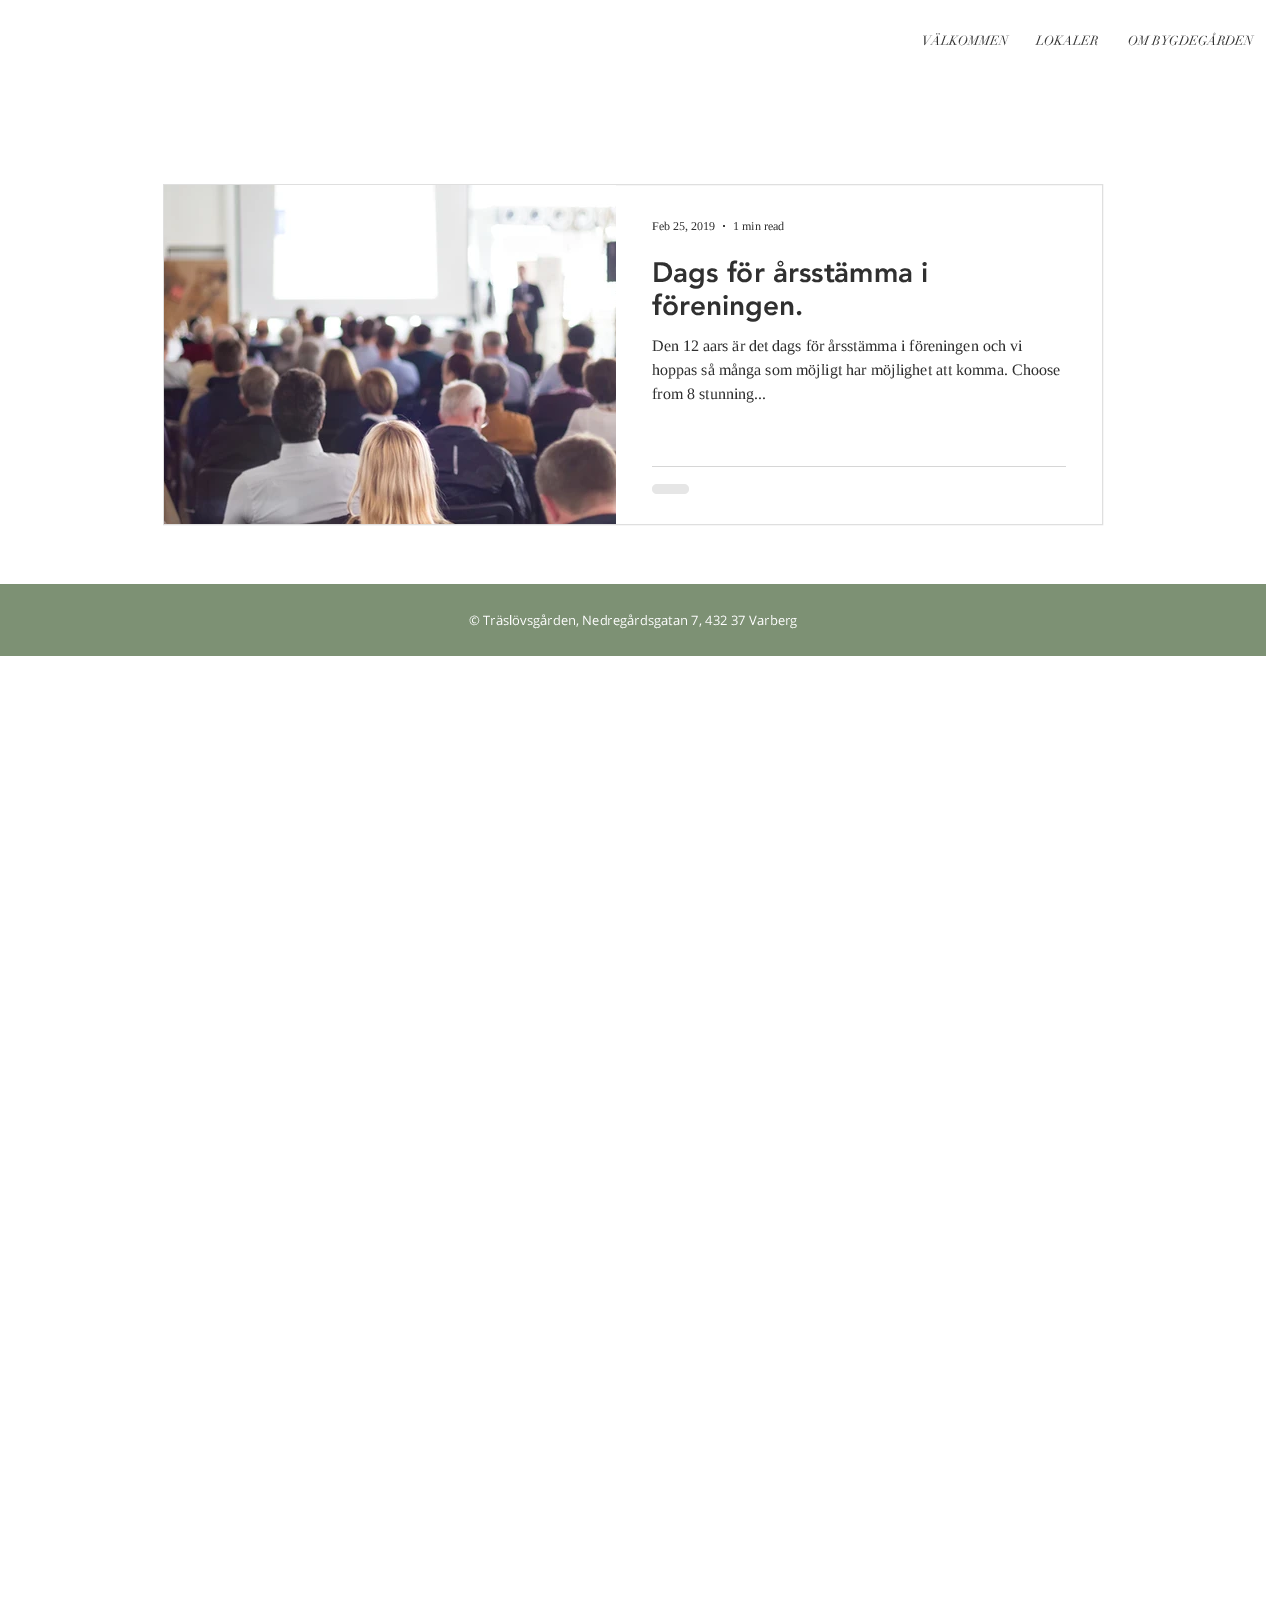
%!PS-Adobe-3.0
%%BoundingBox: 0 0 1266 1607
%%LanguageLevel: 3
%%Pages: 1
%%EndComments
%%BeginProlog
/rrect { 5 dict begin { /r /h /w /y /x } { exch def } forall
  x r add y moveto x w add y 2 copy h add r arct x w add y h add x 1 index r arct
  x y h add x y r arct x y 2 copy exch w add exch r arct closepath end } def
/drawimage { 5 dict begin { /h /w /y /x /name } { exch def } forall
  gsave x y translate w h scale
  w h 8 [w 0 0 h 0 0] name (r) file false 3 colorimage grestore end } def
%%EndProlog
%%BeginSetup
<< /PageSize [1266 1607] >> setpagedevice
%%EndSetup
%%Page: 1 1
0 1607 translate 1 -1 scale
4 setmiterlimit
1 setgray
0 0 1266 1607 rectfill
0.875 setgray
163.5 184.5 939 340 rectstroke
(images/1.raw) 164 185 452 339 drawimage
0.188 setgray
newpath 724 226 1 0 360 arc closepath fill
0.839 setgray
652 466 414 1 rectfill
0.902 setgray
652 484 37 10 5 rrect fill
0.49 0.569 0.455 setrgbcolor
0 584 1266 72 rectfill
/didot-Regular [13 0 0 -13 0 0] selectfont
0.188 setgray
922 45 moveto (VÄLKOMMEN) show
1036 45 moveto (LOKALER) show
1128 45 moveto (OM BYGDEGÅRDEN) show
/LiberationSerif-Regular [12 0 0 -12 0 0] selectfont
652 230 moveto (Feb 25, 2019) show
733 230 moveto (1 min read) show
/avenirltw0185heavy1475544-Black [28 0 0 -28 0 0] selectfont
652 282 moveto (Dags för årsstämma i) show
652 315 moveto (föreningen.) show
/LiberationSerif-Regular [16 0 0 -16 0 0] selectfont
652 351 moveto (Den 12 aars är det dags för årsstämma i föreningen och vi) show
652 375 moveto (hoppas så många som möjligt har möjlighet att komma. Choose) show
652 399 moveto (from 8 stunning...) show
/OpenSans-Regular [13 0 0 -13 0 0] selectfont
1 setgray
469 625 moveto (© Träslövsgården, Nedregårdsgatan 7, 432 37 Varberg) show
showpage
%%EOF
